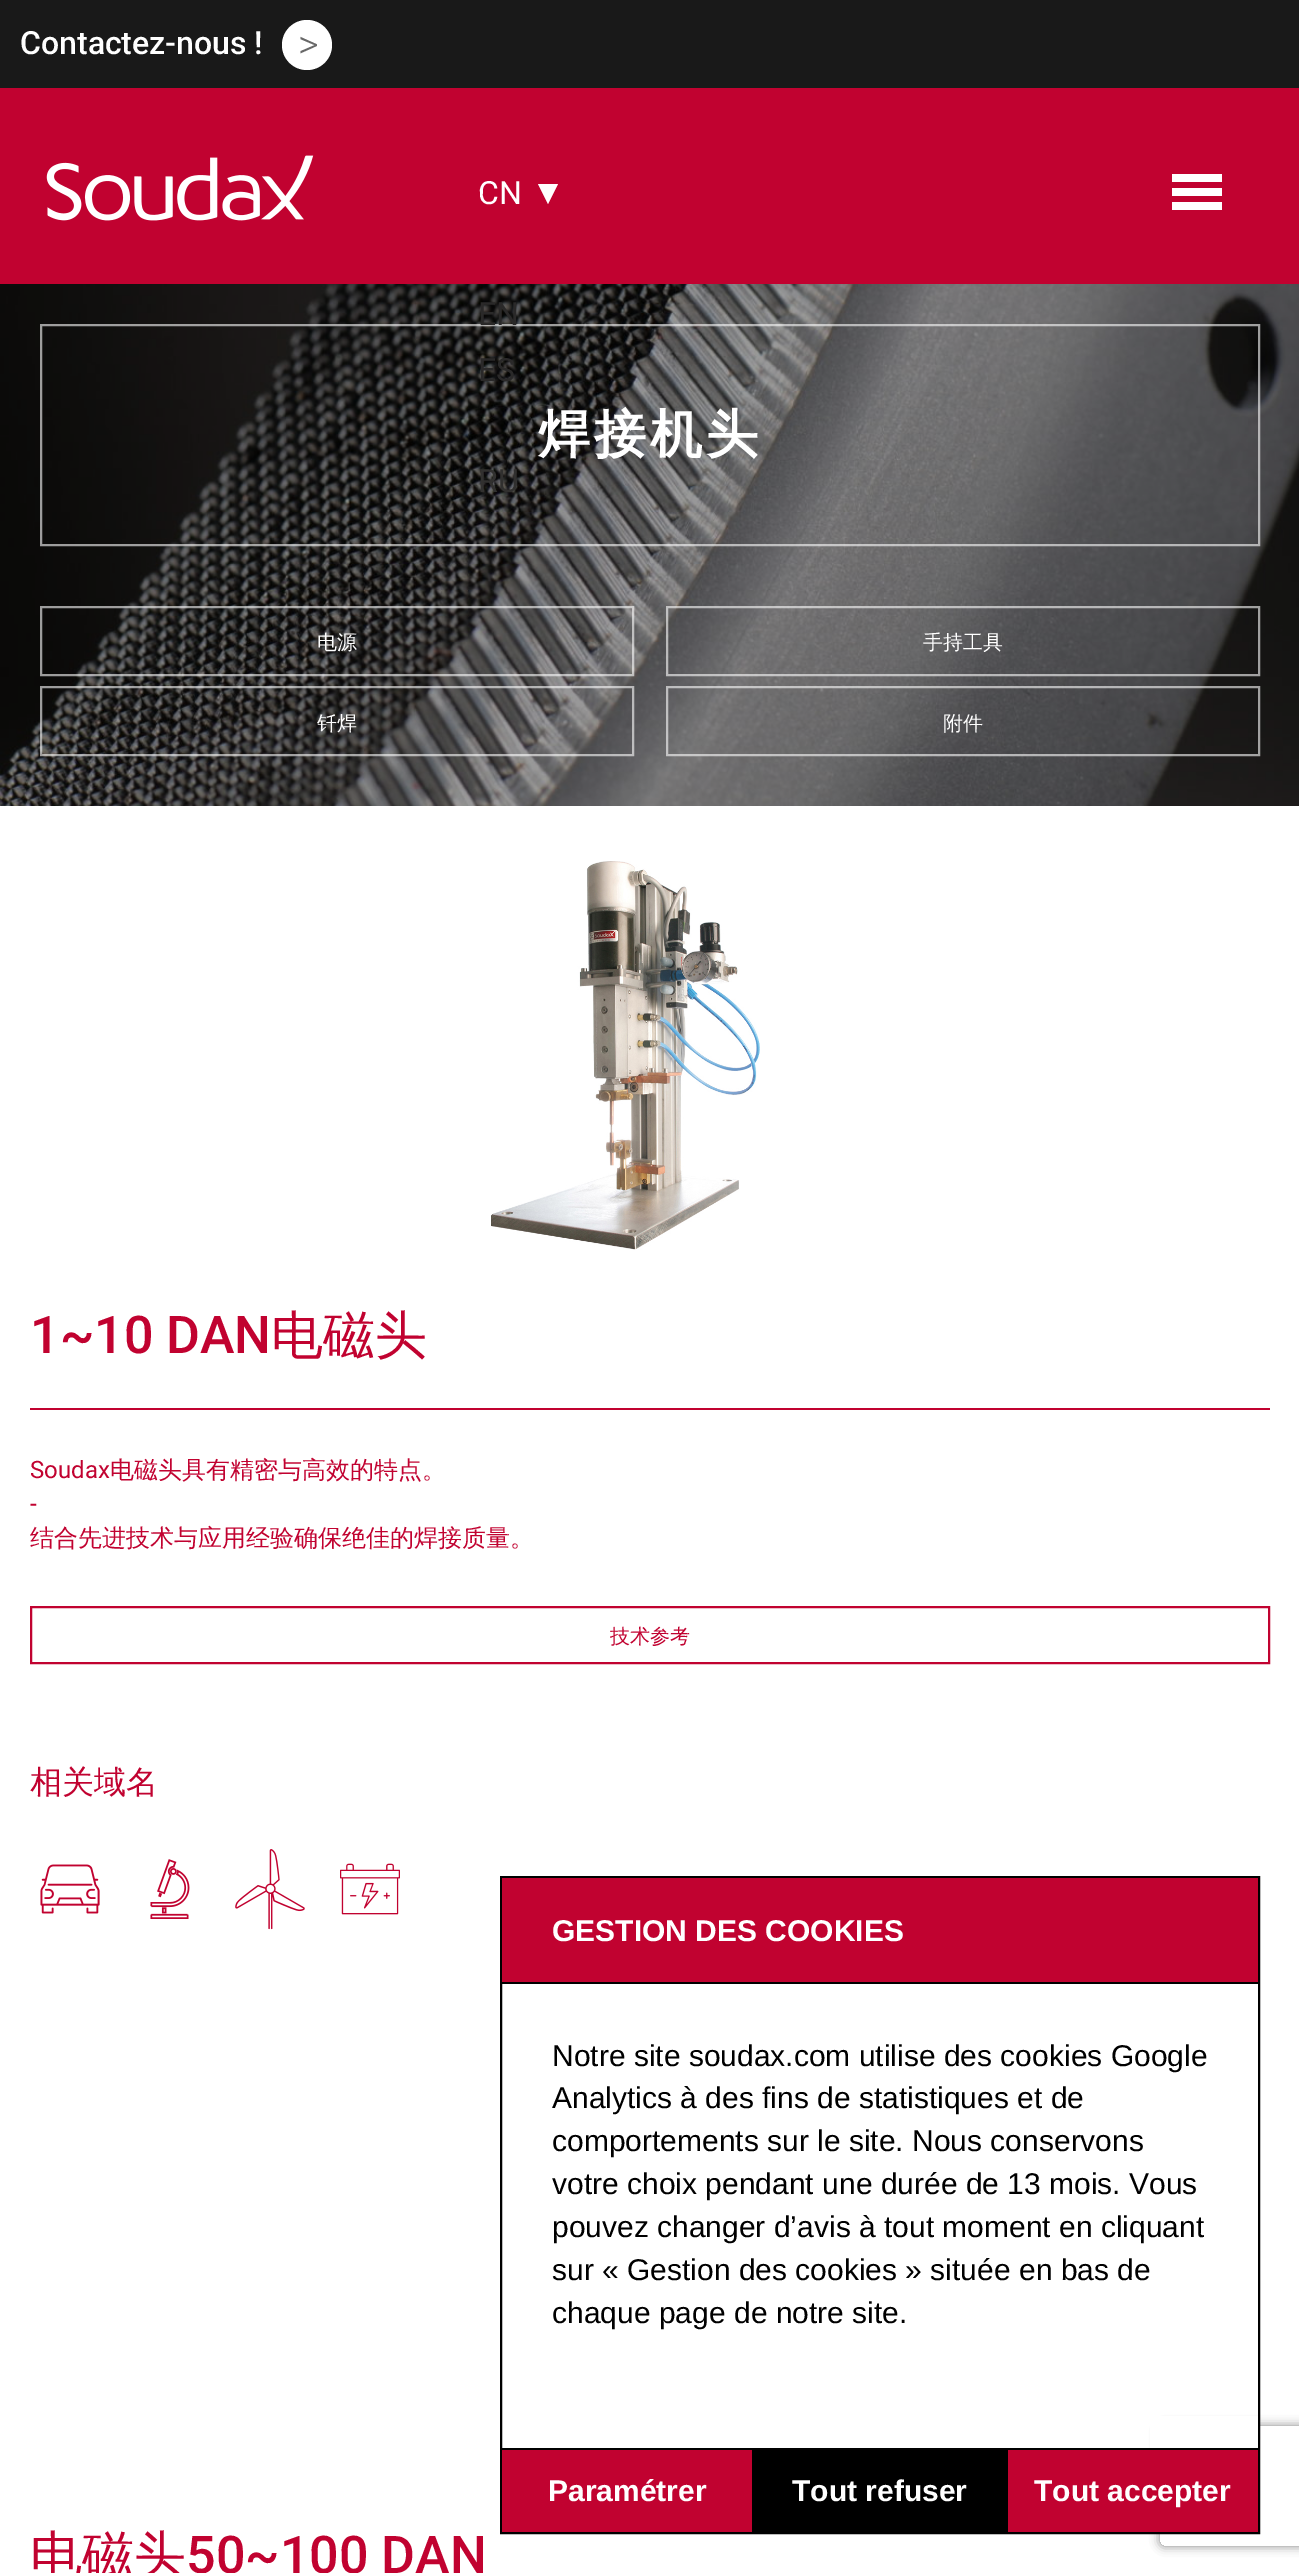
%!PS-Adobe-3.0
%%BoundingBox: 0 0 1299 2573
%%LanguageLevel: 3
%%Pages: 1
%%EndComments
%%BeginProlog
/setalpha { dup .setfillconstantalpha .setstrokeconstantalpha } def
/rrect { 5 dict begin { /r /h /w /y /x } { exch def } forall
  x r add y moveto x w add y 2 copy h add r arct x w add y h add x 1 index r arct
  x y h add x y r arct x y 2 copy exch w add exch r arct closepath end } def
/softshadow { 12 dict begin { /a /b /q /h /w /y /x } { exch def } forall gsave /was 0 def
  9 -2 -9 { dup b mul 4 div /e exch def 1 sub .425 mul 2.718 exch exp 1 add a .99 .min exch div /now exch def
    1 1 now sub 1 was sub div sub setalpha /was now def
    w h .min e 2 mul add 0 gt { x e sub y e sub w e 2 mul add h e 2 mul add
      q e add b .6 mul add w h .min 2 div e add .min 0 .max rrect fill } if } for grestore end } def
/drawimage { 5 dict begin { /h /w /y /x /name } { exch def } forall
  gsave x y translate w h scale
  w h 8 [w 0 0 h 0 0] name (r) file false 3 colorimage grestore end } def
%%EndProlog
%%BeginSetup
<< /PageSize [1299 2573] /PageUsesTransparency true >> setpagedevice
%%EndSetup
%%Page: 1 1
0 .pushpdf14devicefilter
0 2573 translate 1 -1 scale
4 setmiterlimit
1 setgray
0 0 1299 2573 rectfill
0.757 0.008 0.188 setrgbcolor
0 88 1299 196 rectfill
0.098 setgray
0 0 1299 88 rectfill
1 setgray
newpath 307 45 25 0 360 arc closepath fill
(images/1.raw) 46 155 268 66 drawimage
newpath 538 184 moveto 558 184 lineto 548 204 lineto closepath fill
1172 174 50 8 rectfill
1172 188 50 8 rectfill
1172 202 50 8 rectfill
(images/2.raw) 0 284 1299 522 drawimage
0.6 setalpha
2 setlinewidth
41 325 1218 220 rectstroke
41 607 592 68 rectstroke
667 607 592 68 rectstroke
41 687 592 68 rectstroke
667 687 592 68 rectstroke
1 setalpha
(images/3.raw) 491 861 269 389 drawimage
0.757 0.008 0.188 setrgbcolor
30 1408 1240 2 rectfill
31 1607 1238 56 rectstroke
(images/4.raw) 40 1864 60 50 drawimage
(images/5.raw) 150 1859 40 60 drawimage
(images/6.raw) 235 1849 70 81 drawimage
(images/7.raw) 340 1863 60 52 drawimage
gsave
newpath 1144 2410 moveto 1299 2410 lineto 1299 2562 lineto 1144 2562 lineto closepath 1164 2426 moveto 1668 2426 lineto 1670 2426 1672 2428 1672 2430 curveto 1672 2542 lineto 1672 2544 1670 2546 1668 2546 curveto 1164 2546 lineto 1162 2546 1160 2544 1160 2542 curveto 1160 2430 lineto 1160 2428 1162 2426 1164 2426 curveto closepath eoclip newpath
0.502 setgray
1160 2426 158 120 4 5 1 softshadow
grestore
1 setgray
1150 2416 108 32 rectfill
0 setgray
501 1877 758 656 rectstroke
0.757 0.008 0.188 setrgbcolor
502 1878 756 104 rectfill
0 setgray
502 1982 756 2 rectfill
502 2448 756 2 rectfill
0.757 0.008 0.188 setrgbcolor
502 2450 250 82 rectfill
0 setgray
752 2450 256 82 rectfill
0.757 0.008 0.188 setrgbcolor
1008 2450 250 82 rectfill
/Roboto-Medium [32 0 0 -32 0 0] selectfont
1 setgray
20 54 moveto (Contactez-nous !) show
/Roboto-Light [40 0 0 -40 0 0] selectfont
0.408 setgray
298 58 moveto (>) show
/Roboto-Regular [32 0 0 -32 0 0] selectfont
1 setgray
478 204 moveto (CN) show
0.165 0.161 0.161 setrgbcolor
478 325 moveto (EN) show
478 381 moveto (ES) show
0.192 0.188 0.184 setrgbcolor
478 492 moveto (RU) show
/WenQuanYiZenHei-Bold [52 0 0 -52 0 0] selectfont
1 setgray
538 452 moveto 4 0 (焊接机头) ashow
/WenQuanYiZenHei-Medium [20 0 0 -20 0 0] selectfont
317 649 moveto (电源) show
923 649 moveto (手持工具) show
317 730 moveto (钎焊) show
943 730 moveto (附件) show
/Roboto-Medium [52 0 0 -52 0 0] selectfont
0.757 0.008 0.188 setrgbcolor
30 1353 moveto (1~10 DAN) show
/WenQuanYiZenHei-Medium [52 0 0 -52 0 0] selectfont
271 1353 moveto (电磁头) show
/Roboto-Regular [24 0 0 -24 0 0] selectfont
30 1478 moveto (Soudax) show
/WenQuanYiZenHei-Medium [24 0 0 -24 0 0] selectfont
110 1478 moveto (电磁头具有精密与高效的特点。) show
/Roboto-Regular [24 0 0 -24 0 0] selectfont
30 1512 moveto (-) show
/WenQuanYiZenHei-Medium [24 0 0 -24 0 0] selectfont
30 1546 moveto (结合先进技术与应用经验确保绝佳的焊接质量。) show
/WenQuanYiZenHei-Medium [20 0 0 -20 0 0] selectfont
610 1643 moveto (技术参考) show
/WenQuanYiZenHei-Medium [32 0 0 -32 0 0] selectfont
30 1793 moveto (相关域名) show
/WenQuanYiZenHei-Medium [52 0 0 -52 0 0] selectfont
30 2573 moveto (电磁头) show
/Roboto-Medium [52 0 0 -52 0 0] selectfont
186 2573 moveto (50~100 DAN) show
/LiberationSans-Bold [30 0 0 -30 0 0] selectfont
1 setgray
552 1941 moveto (GESTION DES COOKIES) show
/LiberationSans-Regular [30 0 0 -30 0 0] selectfont
0 setgray
552 2066 moveto (Notre site soudax.com utilise des cookies Google) show
552 2108 moveto (Analytics à des fins de statistiques et de) show
552 2151 moveto (comportements sur le site. Nous conservons) show
552 2194 moveto (votre choix pendant une durée de 13 mois. Vous) show
552 2237 moveto (pouvez changer d’avis à tout moment en cliquant) show
552 2280 moveto (sur « Gestion des cookies » située en bas de) show
552 2323 moveto (chaque page de notre site.) show
/LiberationSans-Bold [30 0 0 -30 0 0] selectfont
1 setgray
548 2501 moveto (Paramétrer) show
792 2501 moveto (Tout refuser) show
1034 2501 moveto (Tout accepter) show
.poppdf14devicefilter showpage
%%EOF
